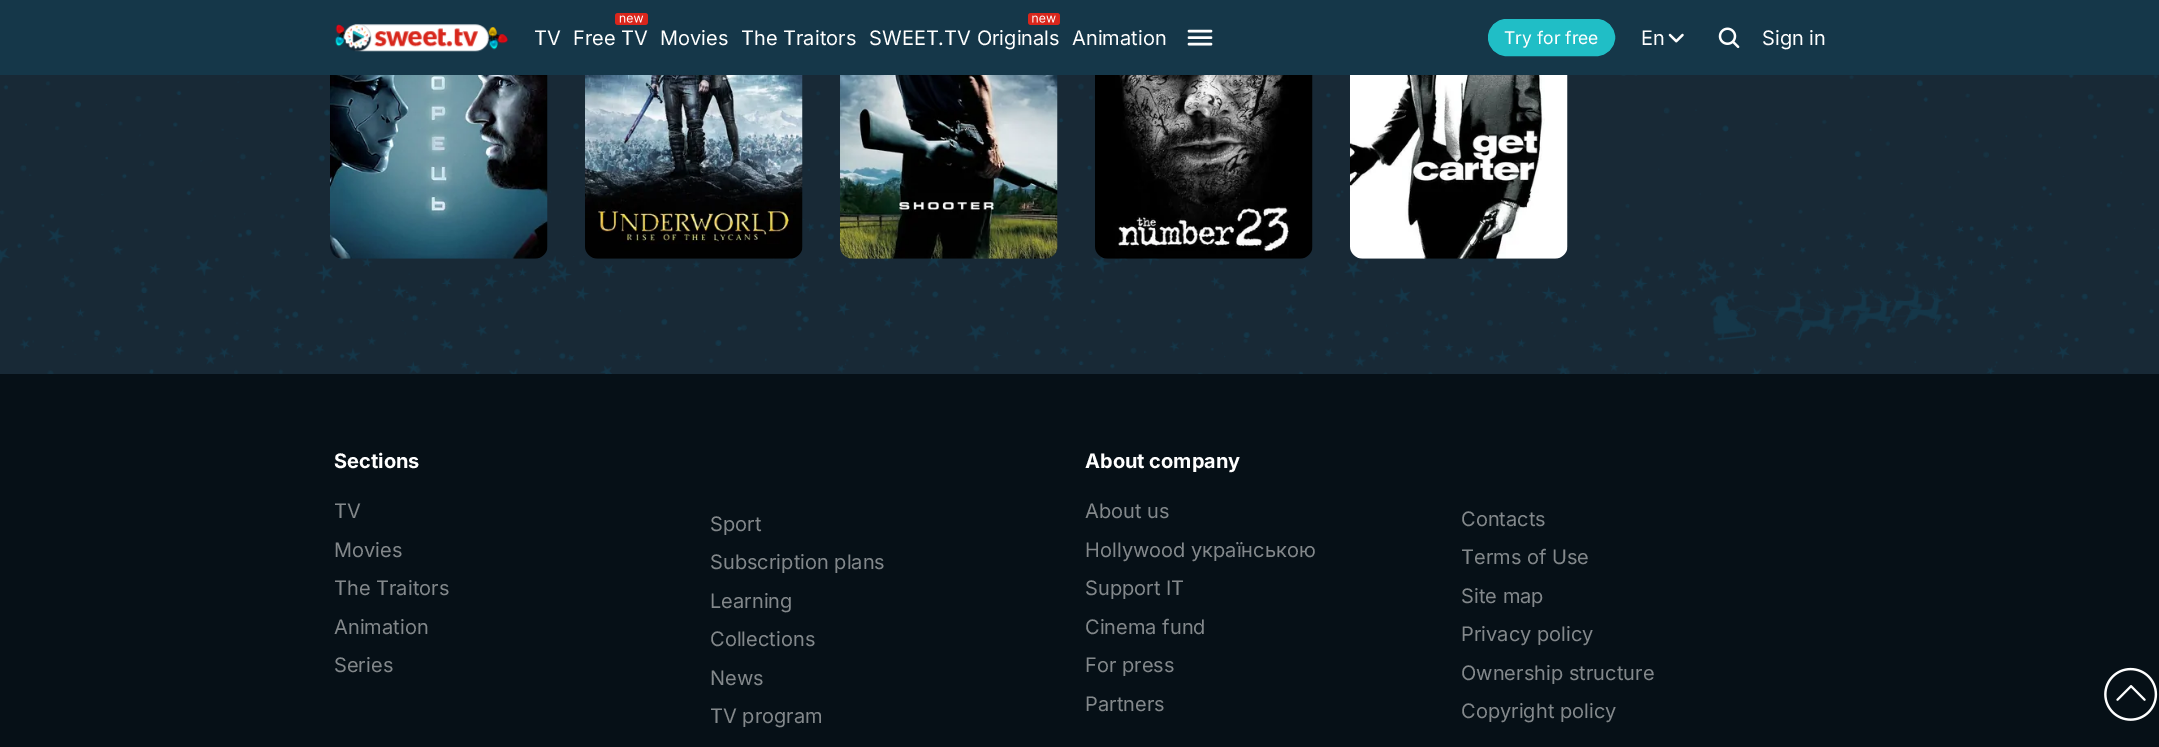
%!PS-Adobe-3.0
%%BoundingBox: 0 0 2159 747
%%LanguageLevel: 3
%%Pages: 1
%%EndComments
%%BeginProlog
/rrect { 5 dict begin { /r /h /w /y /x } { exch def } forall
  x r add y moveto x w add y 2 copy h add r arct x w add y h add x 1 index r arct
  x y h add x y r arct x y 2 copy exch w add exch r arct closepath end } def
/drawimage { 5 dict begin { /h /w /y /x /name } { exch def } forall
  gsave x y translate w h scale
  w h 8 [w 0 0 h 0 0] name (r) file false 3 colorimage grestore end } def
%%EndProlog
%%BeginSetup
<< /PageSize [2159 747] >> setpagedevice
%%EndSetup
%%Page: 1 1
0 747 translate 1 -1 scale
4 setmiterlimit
0.094 0.161 0.212 setrgbcolor
0 0 2159 747 rectfill
0.082 0.216 0.286 setrgbcolor
0 0 2159 75 rectfill
(images/1.raw) 335 24 173 28 drawimage
(images/2.raw) 615 13 33 12 drawimage
(images/3.raw) 1028 13 32 12 drawimage
1 setgray
2.5 setlinewidth
1 setlinecap
newpath 1189 31 moveto 1211 31 lineto 1189 37.5 moveto 1211 37.5 lineto 1189 44 moveto 1211 44 lineto stroke
0.125 0.745 0.776 setrgbcolor
1488.5 19.5 126 36 18 rrect gsave fill grestore
1 setlinewidth
0 setlinecap
stroke
(images/4.raw) 1668 33 16 10 drawimage
(images/5.raw) 1718 27 22 22 drawimage
(images/6.raw) 0 75 2159 299 drawimage
(images/7.raw) 330 75 218 184 drawimage
(images/8.raw) 585 75 218 184 drawimage
(images/9.raw) 840 75 218 184 drawimage
(images/10.raw) 1095 75 218 184 drawimage
(images/11.raw) 1350 75 218 184 drawimage
0.024 0.063 0.09 setrgbcolor
0 374 2159 373 rectfill
(images/12.raw) 2104 667 54 54 drawimage
/Inter-Regular [20 0 0 -20 0 0] selectfont
1 setgray
534 45 moveto (TV) show
573 45 moveto (Free TV) show
660 45 moveto (Movies) show
741 45 moveto (The Traitors) show
869 45 moveto (SWEET.TV Originals) show
1072 45 moveto (Animation) show
/Inter-Regular [17.5 0 0 -17.5 0 0] selectfont
1504 44 moveto (Try for free) show
/Inter-Regular [20 0 0 -20 0 0] selectfont
1641 45 moveto (En) show
1762 45 moveto (Sign in) show
/Inter-Bold [20 0 0 -20 0 0] selectfont
334 468 moveto (Sections) show
/Inter-Regular [20 0 0 -20 0 0] selectfont
0.514 0.533 0.545 setrgbcolor
334 518 moveto (TV) show
334 557 moveto (Movies) show
334 595 moveto (The Traitors) show
334 634 moveto (Animation) show
334 672 moveto (Series) show
710 531 moveto (Sport) show
710 569 moveto (Subscription plans) show
710 608 moveto (Learning) show
710 646 moveto (Collections) show
710 685 moveto (News) show
710 723 moveto (TV program) show
/Inter-Bold [20 0 0 -20 0 0] selectfont
1 setgray
1085 468 moveto (About company) show
/Inter-Regular [20 0 0 -20 0 0] selectfont
0.514 0.533 0.545 setrgbcolor
1085 518 moveto (About us) show
1085 557 moveto (Hollywood українською) show
1085 595 moveto (Support IT) show
1085 634 moveto (Cinema fund) show
1085 672 moveto (For press) show
1085 711 moveto (Partners) show
1461 526 moveto (Contacts) show
1461 564 moveto (Terms of Use) show
1461 603 moveto (Site map) show
1461 641 moveto (Privacy policy) show
1461 680 moveto (Ownership structure) show
1461 718 moveto (Copyright policy) show
showpage
%%EOF
